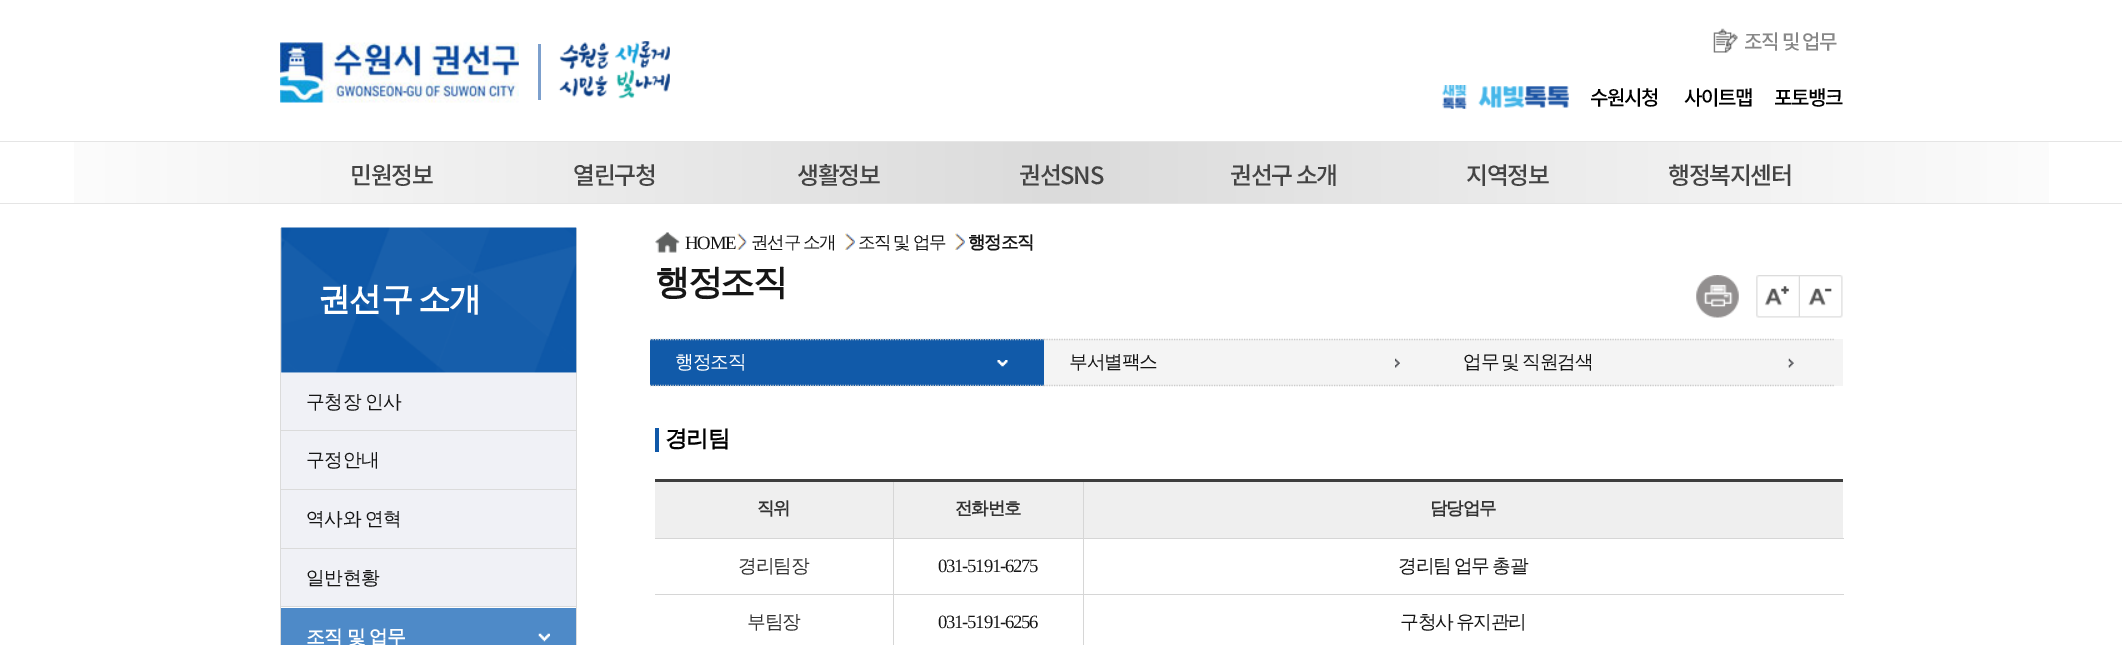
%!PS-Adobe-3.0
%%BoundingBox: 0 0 2122 645
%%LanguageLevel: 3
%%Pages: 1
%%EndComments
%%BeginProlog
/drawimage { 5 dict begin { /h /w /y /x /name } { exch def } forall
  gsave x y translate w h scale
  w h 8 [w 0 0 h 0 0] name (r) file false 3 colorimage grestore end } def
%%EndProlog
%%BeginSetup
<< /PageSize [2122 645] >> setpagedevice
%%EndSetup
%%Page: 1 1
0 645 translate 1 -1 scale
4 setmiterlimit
1 setgray
0 0 2122 645 rectfill
(images/1.raw) 280 42 239 61 drawimage
0.49 0.627 0.804 setrgbcolor
538 44 3 56 rectfill
(images/2.raw) 558 41 112 58 drawimage
(images/3.raw) 1713 28 25 25 drawimage
(images/4.raw) 1442 85 127 24 drawimage
gsave newpath 74 142 moveto 2049 142 lineto 2049 203 lineto 74 203 lineto closepath clip newpath
<< /ShadingType 2 /ColorSpace /DeviceRGB /Coords [0 173 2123 172] /Extend [true true] /Function << /FunctionType 3 /Domain [0 1] /Functions [<< /FunctionType 2 /Domain [0 1] /C0 [1 1 1] /C1 [0.859 0.859 0.859] /N 1 >> << /FunctionType 2 /Domain [0 1] /C0 [0.859 0.859 0.859] /C1 [1 1 1] /N 1 >>] /Bounds [0.5] /Encode [0 1 0 1] >> >> shfill grestore
0.898 setgray
0 141 2122 1 rectfill
0 203 2122 1 rectfill
0.859 setgray
576 228 1 417 rectfill
280 228 1 417 rectfill
(images/5.raw) 281 227 296 146 drawimage
281 430 295 1 rectfill
0.941 0.945 0.965 setrgbcolor
281 373 295 57 rectfill
0.859 setgray
281 489 295 1 rectfill
0.941 0.945 0.965 setrgbcolor
281 431 295 58 rectfill
0.859 setgray
281 548 295 1 rectfill
0.941 0.945 0.965 setrgbcolor
281 490 295 58 rectfill
0.859 setgray
281 606 295 1 rectfill
0.941 0.945 0.965 setrgbcolor
281 549 295 57 rectfill
0.306 0.541 0.784 setrgbcolor
281 608 295 37 rectfill
(images/6.raw) 538 633 12 9 drawimage
(images/7.raw) 655 232 25 21 drawimage
(images/8.raw) 737 233 10 17 drawimage
(images/9.raw) 845 233 10 17 drawimage
(images/9.raw) 955 233 10 17 drawimage
(images/10.raw) 1696 275 43 43 drawimage
(images/11.raw) 1756 275 44 43 drawimage
(images/12.raw) 1800 275 43 43 drawimage
0.957 setgray
1044 339 799 47 rectfill
0.067 0.353 0.663 setrgbcolor
650 339 394 47 rectfill
(images/13.raw) 997 360 11 7 drawimage
0.8 setgray
1.2 setlinewidth
[1.25 1.25] 0 setdash
newpath 650 339.5 moveto 1045 339.5 lineto stroke
newpath 650 385.5 moveto 1045 385.5 lineto stroke
(images/14.raw) 1395 358 5 10 drawimage
newpath 1044 339.5 moveto 1439 339.5 lineto stroke
newpath 1044 385.5 moveto 1439 385.5 lineto stroke
(images/15.raw) 1788 358 6 10 drawimage
newpath 1437.5 339.5 moveto 1834 339.5 lineto stroke
newpath 1437.5 385.5 moveto 1834 385.5 lineto stroke
0.059 0.345 0.659 setrgbcolor
655 428 4 24 rectfill
0.839 setgray
1083 594 1 51 rectfill
1083 594 761 1 rectfill
1083 538 1 57 rectfill
1083 538 761 1 rectfill
1083 480 1 59 rectfill
893 594 1 51 rectfill
893 594 191 1 rectfill
893 538 1 57 rectfill
893 538 191 1 rectfill
893 480 1 59 rectfill
0.243 setgray
655 479 1188 3 rectfill
0.937 setgray
655 482 238 56 rectfill
0.839 setgray
655 538 239 1 rectfill
0.937 setgray
894 482 189 56 rectfill
1084 482 759 56 rectfill
0.839 setgray
655 594 239 1 rectfill
/NotoSansKR-Medium [20 0 0 -20 0 0] selectfont
0.533 setgray
1744 49 moveto -1.25 0 (조직 및 업무) ashow
0 setgray
1590 105 moveto -1.25 0 (수원시청) ashow
1684 105 moveto -1.25 0 (사이트맵) ashow
1774 105 moveto -1.25 0 (포토뱅크) ashow
/NotoSansKR-Medium [23.75 0 0 -23.75 0 0] selectfont
0.267 setgray
350 184 moveto -1.25 0 (민원정보) ashow
573 184 moveto -1.25 0 (열린구청) ashow
797 184 moveto -1.25 0 (생활정보) ashow
1019 184 moveto -1.25 0 (권선SNS) ashow
1230 184 moveto -1.25 0 (권선구 소개) ashow
1466 184 moveto -1.25 0 (지역정보) ashow
1668 184 moveto -1.25 0 (행정복지센터) ashow
/WenQuanYiZenHei-Bold [32.5 0 0 -32.5 0 0] selectfont
1 setgray
318 310 moveto -2 0 32 -1.25 0 (권선구 소개) awidthshow
/WenQuanYiZenHei-Medium [18.75 0 0 -18.75 0 0] selectfont
0.086 setgray
306 408 moveto -1 0 32 -0.5 0 (구청장 인사) awidthshow
306 466 moveto -0.5 0 (구정안내) ashow
306 525 moveto -1 0 32 -0.5 0 (역사와 연혁) awidthshow
306 584 moveto -0.5 0 (일반현황) ashow
/WenQuanYiZenHei-Bold [18.75 0 0 -18.75 0 0] selectfont
1 setgray
306 643 moveto -1 0 32 -0.5 0 (조직 및 업무) awidthshow
/LiberationSerif-Regular [18.75 0 0 -18.75 0 0] selectfont
0.086 setgray
685 249 moveto -1.25 0 (HOME) ashow
/WenQuanYiZenHei-Medium [17.5 0 0 -17.5 0 0] selectfont
751 248 moveto -1 0 32 -1.25 0 (권선구 소개) awidthshow
858 248 moveto -1 0 32 -1.25 0 (조직 및 업무) awidthshow
/WenQuanYiZenHei-Bold [17.5 0 0 -17.5 0 0] selectfont
968 248 moveto -1.25 0 (행정조직) ashow
/WenQuanYiZenHei-Bold [35 0 0 -35 0 0] selectfont
655 294 moveto -2.5 0 (행정조직) ashow
/WenQuanYiZenHei-Medium [18.75 0 0 -18.75 0 0] selectfont
1 setgray
675 368 moveto -1.25 0 (행정조직) ashow
0.086 setgray
1069 368 moveto -1.25 0 (부서별팩스) ashow
1463 368 moveto -1 0 32 -1.25 0 (업무 및 직원검색) awidthshow
/WenQuanYiZenHei-Bold [22.5 0 0 -22.5 0 0] selectfont
0 setgray
665 446 moveto -1.25 0 (경리팀) ashow
/WenQuanYiZenHei-Bold [17.5 0 0 -17.5 0 0] selectfont
0.2 setgray
757 514 moveto -1.25 0 (직위) ashow
955 514 moveto -1.25 0 (전화번호) ashow
1430 514 moveto -1.25 0 (담당업무) ashow
/WenQuanYiZenHei-Medium [18.75 0 0 -18.75 0 0] selectfont
738 572 moveto -1.25 0 (경리팀장) ashow
/LiberationSerif-Regular [18.75 0 0 -18.75 0 0] selectfont
0.086 setgray
938 572 moveto -1.25 0 (031-5191-6275) ashow
/WenQuanYiZenHei-Medium [18.75 0 0 -18.75 0 0] selectfont
1398 572 moveto -1 0 32 -1.25 0 (경리팀 업무 총괄) awidthshow
0.2 setgray
747 628 moveto -1.25 0 (부팀장) ashow
/LiberationSerif-Regular [18.75 0 0 -18.75 0 0] selectfont
0.086 setgray
938 628 moveto -1.25 0 (031-5191-6256) ashow
/WenQuanYiZenHei-Medium [18.75 0 0 -18.75 0 0] selectfont
1400 628 moveto -1 0 32 -1.25 0 (구청사 유지관리) awidthshow
showpage
%%EOF
